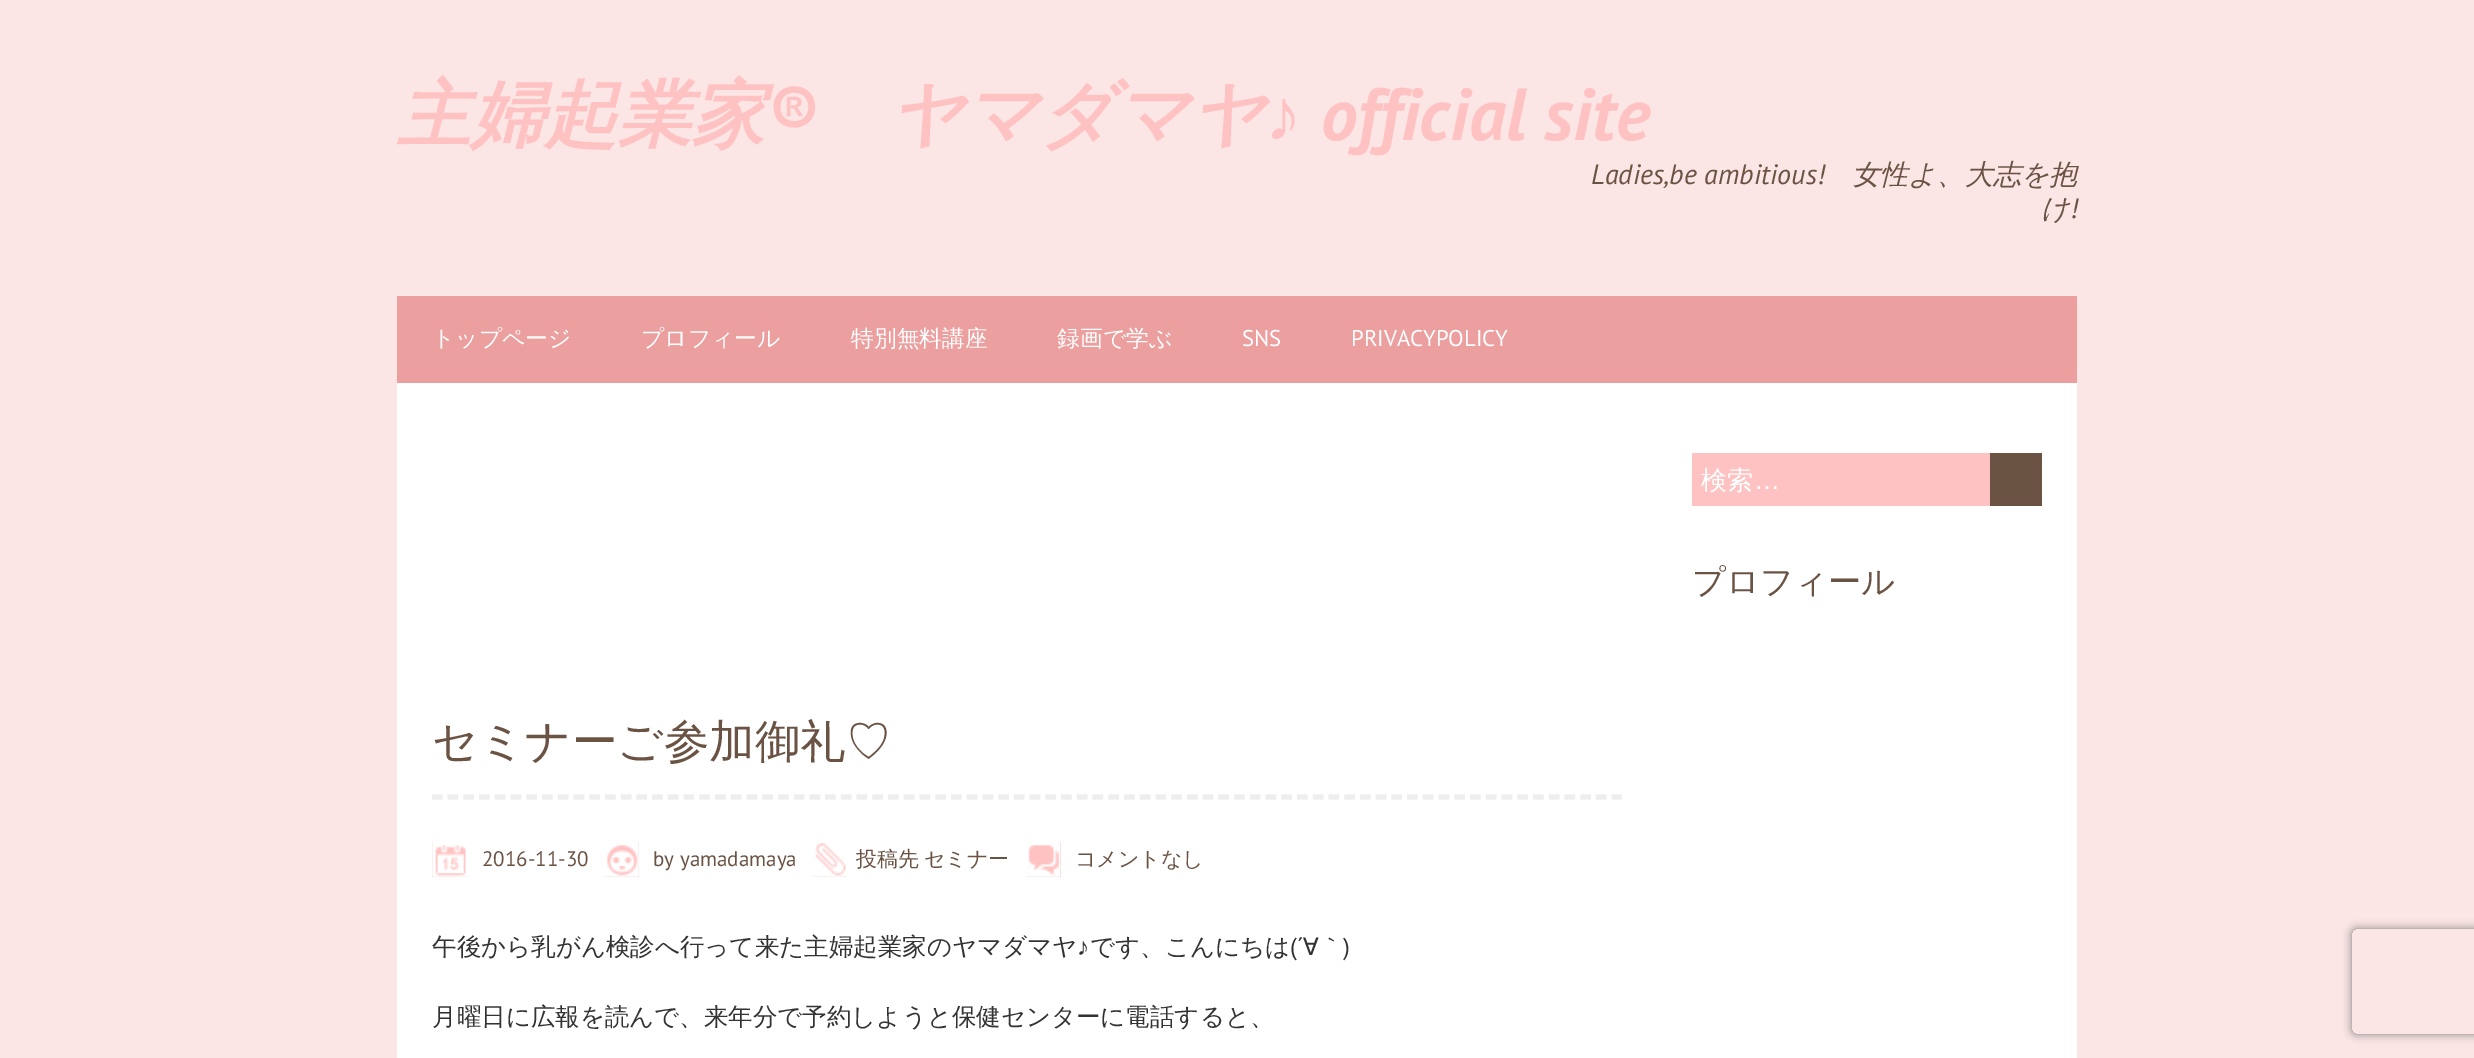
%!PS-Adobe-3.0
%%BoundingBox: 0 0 2474 1058
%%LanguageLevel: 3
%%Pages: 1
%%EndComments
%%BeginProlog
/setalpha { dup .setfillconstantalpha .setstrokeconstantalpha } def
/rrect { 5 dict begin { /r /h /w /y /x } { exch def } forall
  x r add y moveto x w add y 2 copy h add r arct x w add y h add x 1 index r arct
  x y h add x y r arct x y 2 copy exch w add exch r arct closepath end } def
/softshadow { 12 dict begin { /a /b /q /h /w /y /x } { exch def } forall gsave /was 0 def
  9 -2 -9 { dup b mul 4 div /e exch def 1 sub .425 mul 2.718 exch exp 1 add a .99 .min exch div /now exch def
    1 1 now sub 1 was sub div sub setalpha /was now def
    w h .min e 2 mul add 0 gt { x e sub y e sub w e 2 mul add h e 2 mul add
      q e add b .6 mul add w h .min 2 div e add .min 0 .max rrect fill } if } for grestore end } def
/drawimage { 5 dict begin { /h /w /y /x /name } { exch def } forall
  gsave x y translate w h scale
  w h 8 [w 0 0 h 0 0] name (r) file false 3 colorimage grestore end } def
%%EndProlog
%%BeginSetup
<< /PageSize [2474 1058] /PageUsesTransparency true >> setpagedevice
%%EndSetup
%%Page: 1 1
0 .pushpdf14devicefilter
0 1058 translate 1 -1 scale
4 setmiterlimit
0.988 0.898 0.898 setrgbcolor
0 0 2474 1058 rectfill
1 setgray
397 383 1680 675 rectfill
0.922 0.624 0.624 setrgbcolor
397 296 1680 87 rectfill
1 0.761 0.761 setrgbcolor
1692 453 298 53 rectfill
0.42 0.325 0.267 setrgbcolor
1990 453 52 53 rectfill
0.933 setgray
5.2 setlinewidth
[10.5 5.23] 0 setdash
newpath 432 797 moveto 1622 797 lineto stroke
1 0.761 0.761 setrgbcolor
432 842 35 35 rectfill
(images/1.raw) 432 842 35 35 drawimage
604 842 35 35 rectfill
(images/2.raw) 604 842 35 35 drawimage
812 843 35 34 rectfill
(images/3.raw) 812 842 35 35 drawimage
1026 842 35 35 rectfill
(images/4.raw) 1026 842 35 35 drawimage
gsave
newpath 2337 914 moveto 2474 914 lineto 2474 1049 lineto 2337 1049 lineto closepath 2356 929 moveto 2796 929 lineto 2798 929 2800 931 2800 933 curveto 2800 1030 lineto 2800 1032 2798 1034 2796 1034 curveto 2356 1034 lineto 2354 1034 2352 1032 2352 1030 curveto 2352 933 lineto 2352 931 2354 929 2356 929 curveto closepath eoclip newpath
0.502 setgray
2352 929 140 105 4 4.5 1 softshadow
grestore
/WenQuanYiZenHei-BoldItalic [73.5 0 0 -73.5 0 0] selectfont
397 140 moveto (主婦起業家) show
/PTSans-BoldItalic [73.5 0 0 -73.5 0 0] selectfont
765 140 moveto (®) show
/WenQuanYiZenHei-BoldItalic [73.5 0 0 -73.5 0 0] selectfont
889 140 moveto (ヤマダマヤ) show
/LiberationSans-BoldItalic [73.5 0 0 -73.5 0 0] selectfont
1265 140 moveto (♪) show
/PTSans-BoldItalic [73.5 0 0 -73.5 0 0] selectfont
1321 140 moveto (official site) show
/PTSans-Italic [28 0 0 -28 0 0] selectfont
0.42 0.325 0.267 setrgbcolor
1591 184 moveto (Ladies,be ambitious!) show
/WenQuanYiZenHei-MediumItalic [28 0 0 -28 0 0] selectfont
1852 184 moveto (女性よ、大志を抱) show
2041 218 moveto (け) show
/PTSans-Italic [28 0 0 -28 0 0] selectfont
2070 218 moveto (!) show
/WenQuanYiZenHei-Medium [22.75 0 0 -22.75 0 0] selectfont
1 setgray
432 346 moveto (トップページ) show
641 346 moveto (プロフィール) show
851 346 moveto (特別無料講座) show
1057 346 moveto (録画で学ぶ) show
/PTSans-Regular [22.75 0 0 -22.75 0 0] selectfont
1242 346 moveto (SNS) show
1351 346 moveto (PRIVACYPOLICY) show
/WenQuanYiZenHei-Medium [26 0 0 -26 0 0] selectfont
1701 489 moveto (検索) show
/LiberationSans-Regular [26 0 0 -26 0 0] selectfont
1754 489 moveto (…) show
/WenQuanYiZenHei-Medium [33.25 0 0 -33.25 0 0] selectfont
0.42 0.325 0.267 setrgbcolor
1692 593 moveto (プロフィール) show
/WenQuanYiZenHei-Medium [45.5 0 0 -45.5 0 0] selectfont
432 757 moveto (セミナーご参加御礼♡) show
/PTSans-Regular [21 0 0 -21 0 0] selectfont
482 866 moveto (2016-11-30) show
653 866 moveto (by yamadamaya) show
/WenQuanYiZenHei-Medium [21 0 0 -21 0 0] selectfont
856 866 moveto (投稿先) show
924 866 moveto (セミナー) show
1075 866 moveto (コメントなし) show
/WenQuanYiZenHei-Medium [24.5 0 0 -24.5 0 0] selectfont
0.2 setgray
432 955 moveto (午後から乳がん検診へ行って来た主婦起業家のヤマダマヤ) show
/LiberationSans-Regular [24.5 0 0 -24.5 0 0] selectfont
1077 955 moveto (♪) show
/WenQuanYiZenHei-Medium [24.5 0 0 -24.5 0 0] selectfont
1090 955 moveto (です、こんにちは) show
/PTSans-Regular [24.5 0 0 -24.5 0 0] selectfont
1290 955 moveto (\(´) show
/WenQuanYiZenHei-Medium [24.5 0 0 -24.5 0 0] selectfont
1303 955 moveto (∀｀) show
/PTSans-Regular [24.5 0 0 -24.5 0 0] selectfont
1343 955 moveto (\)) show
/WenQuanYiZenHei-Medium [24.5 0 0 -24.5 0 0] selectfont
432 1025 moveto (月曜日に広報を読んで、来年分で予約しようと保健センターに電話すると、) show
.poppdf14devicefilter showpage
%%EOF
